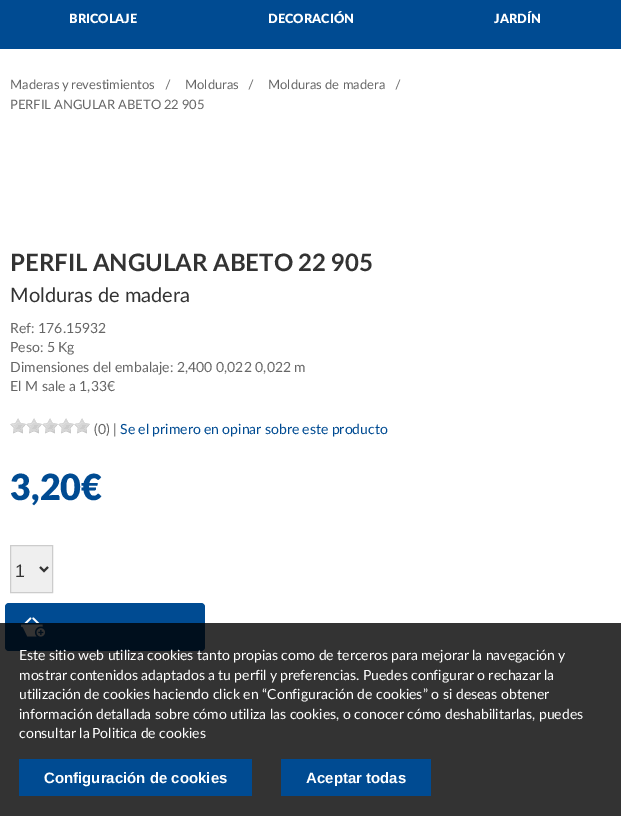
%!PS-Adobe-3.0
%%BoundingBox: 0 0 621 816
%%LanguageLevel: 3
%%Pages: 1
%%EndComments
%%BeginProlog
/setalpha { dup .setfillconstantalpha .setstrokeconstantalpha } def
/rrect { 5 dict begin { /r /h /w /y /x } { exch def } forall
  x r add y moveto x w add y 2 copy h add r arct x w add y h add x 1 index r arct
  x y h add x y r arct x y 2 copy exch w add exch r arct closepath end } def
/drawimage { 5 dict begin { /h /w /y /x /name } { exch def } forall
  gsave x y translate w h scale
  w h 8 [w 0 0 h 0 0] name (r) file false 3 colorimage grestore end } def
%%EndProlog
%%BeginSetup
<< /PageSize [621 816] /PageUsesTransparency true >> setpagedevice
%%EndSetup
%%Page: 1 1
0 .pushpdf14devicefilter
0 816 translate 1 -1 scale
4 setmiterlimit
1 setgray
0 0 621 816 rectfill
0 0.294 0.573 setrgbcolor
0 0 621 49 rectfill
(images/1.raw) 10 418 80 16 drawimage
0.937 setgray
newpath 10.5 545.5 moveto 52.5 545.5 lineto 52.5 592.5 lineto 10.5 592.5 lineto closepath gsave fill grestore
0.8 setgray
stroke
0.2 setgray
2 setlinewidth
newpath 40 567 moveto 44 571 lineto 48 567 lineto stroke
0 0.294 0.573 setrgbcolor
5 603 200 48 4 rrect fill
(images/2.raw) 21 617 24 20 drawimage
0.8 setalpha
0 setgray
0 623 621 193 rectfill
1 setalpha
0 0.294 0.573 setrgbcolor
19 759 233 37 rectfill
281 759 150 37 rectfill
/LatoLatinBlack-Black [12.75 0 0 -12.75 0 0] selectfont
1 setgray
69 23 moveto (BRICOLAJE) show
268 23 moveto (DECORACIÓN) show
494 23 moveto (JARDÍN) show
/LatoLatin-Regular [13 0 0 -13 0 0] selectfont
0.4 setgray
10 89 moveto -1 0 32 (Maderas y revestimientos) widthshow
165 89 moveto (/) show
185 89 moveto (Molduras) show
248 89 moveto (/) show
268 89 moveto (Molduras de madera) show
395 89 moveto (/) show
10 109 moveto -0.5 0 32 (PERFIL ANGULAR ABETO 22 905) widthshow
/LatoLatin-Bold [24 0 0 -24 0 0] selectfont
0.2 setgray
10 271 moveto -0.5 0 32 (PERFIL ANGULAR ABETO 22 905) widthshow
/LatoLatin-Regular [20 0 0 -20 0 0] selectfont
10 302 moveto (Molduras de madera) show
/LatoLatin-Regular [14 0 0 -14 0 0] selectfont
0.4 setgray
10 333 moveto (Ref: 176.15932) show
10 352 moveto -0.25 0 32 (Peso: 5 Kg) widthshow
10 372 moveto (Dimensiones del embalaje: 2,400 0,022 0,022 m) show
10 391 moveto (El M sale a 1,33€) show
94 434 moveto (\(0\) |) show
0 0.294 0.573 setrgbcolor
120 434 moveto -0.25 0 32 (Se el primero en opinar sobre este producto) widthshow
/LatoLatinBlack-Black [36 0 0 -36 0 0] selectfont
10 500 moveto (3,20€) show
/LiberationSans-Regular [18 0 0 -18 0 0] selectfont
0.2 setgray
15 577 moveto (1) show
/LatoLatin-Regular [14 0 0 -14 0 0] selectfont
1 setgray
19 660 moveto -0.25 0 32 (Este sitio web utiliza cookies tanto propias como de terceros para mejorar la navegación y) widthshow
19 680 moveto -0.25 0 32 (mostrar contenidos adaptados a tu perfil y preferencias. Puedes configurar o rechazar la) widthshow
19 699 moveto (utilización de cookies haciendo click en “Configuración de cookies” o si deseas obtener) show
19 719 moveto -0.1 0 32 (información detallada sobre cómo utiliza las cookies, o conocer cómo deshabilitarlas, puedes) widthshow
19 738 moveto (consultar la) show
92 738 moveto (Politica de cookies) show
/LiberationSans-Bold [15 0 0 -15 0 0] selectfont
44 783 moveto (Configuración de cookies) show
306 783 moveto (Aceptar todas) show
.poppdf14devicefilter showpage
%%EOF
